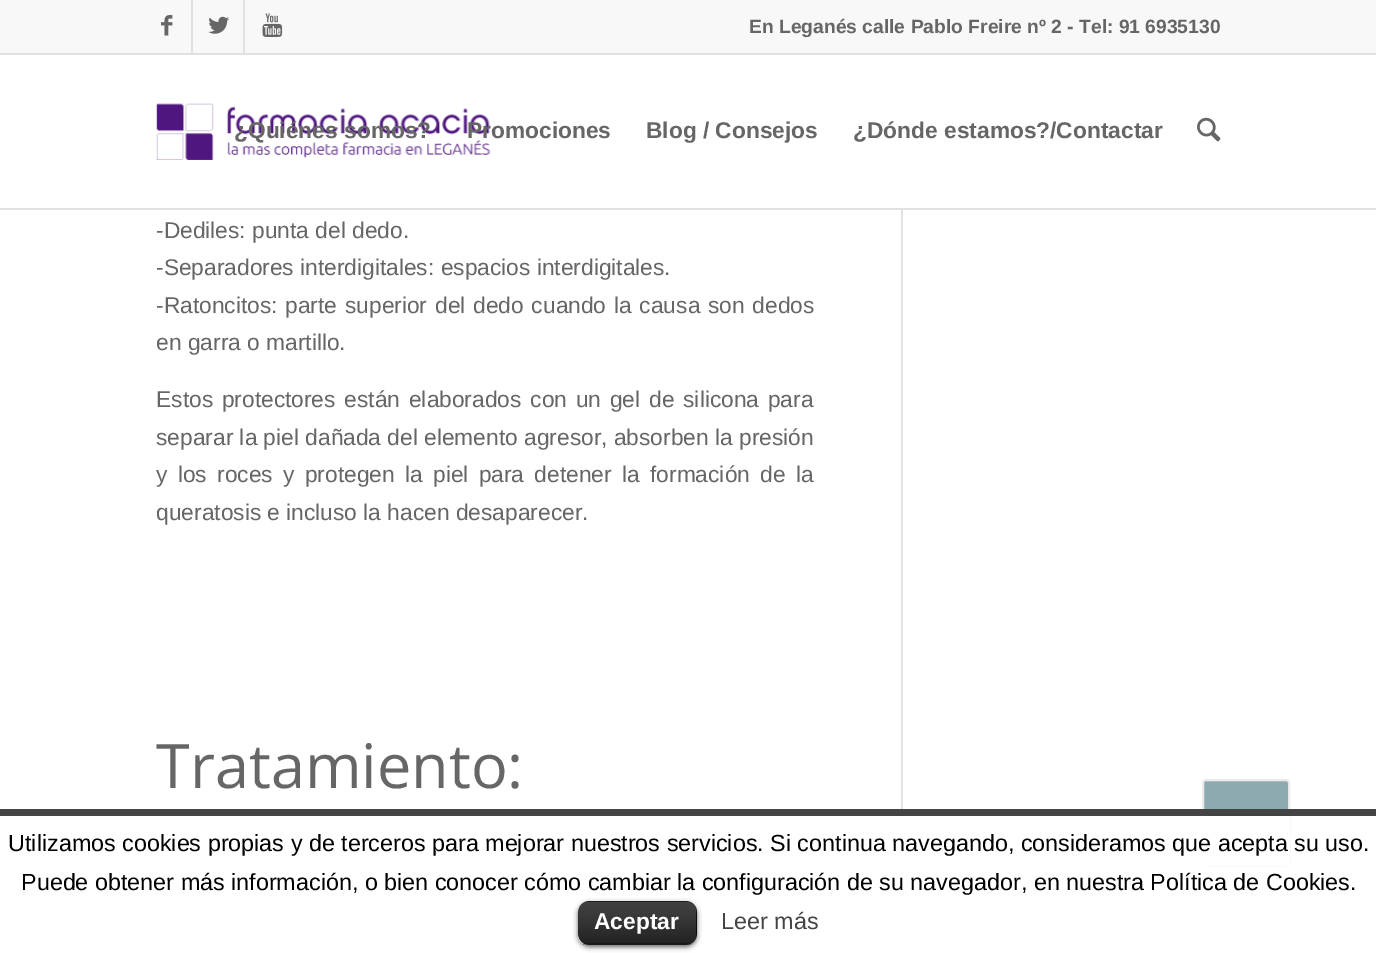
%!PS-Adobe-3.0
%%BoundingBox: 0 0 1376 953
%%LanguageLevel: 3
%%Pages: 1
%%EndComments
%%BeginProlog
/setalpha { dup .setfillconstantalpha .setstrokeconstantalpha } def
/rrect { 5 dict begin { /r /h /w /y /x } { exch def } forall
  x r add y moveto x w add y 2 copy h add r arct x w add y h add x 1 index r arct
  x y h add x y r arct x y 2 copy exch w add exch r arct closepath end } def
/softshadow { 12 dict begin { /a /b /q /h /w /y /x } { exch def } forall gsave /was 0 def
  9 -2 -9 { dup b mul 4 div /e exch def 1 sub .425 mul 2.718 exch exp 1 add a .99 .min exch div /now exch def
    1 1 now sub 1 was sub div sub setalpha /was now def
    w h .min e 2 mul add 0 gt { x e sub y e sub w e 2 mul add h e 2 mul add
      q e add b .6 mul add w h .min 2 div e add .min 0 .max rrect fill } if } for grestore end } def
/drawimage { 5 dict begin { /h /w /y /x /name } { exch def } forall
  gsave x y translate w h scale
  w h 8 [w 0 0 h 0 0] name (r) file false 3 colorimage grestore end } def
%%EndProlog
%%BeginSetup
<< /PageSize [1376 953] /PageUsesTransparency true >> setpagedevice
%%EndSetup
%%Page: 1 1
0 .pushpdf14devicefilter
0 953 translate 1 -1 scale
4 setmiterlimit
1 setgray
0 0 1376 953 rectfill
0.973 setgray
0 0 1376 53 rectfill
0.882 setgray
0 53 1376 2 rectfill
191 0 2 53 rectfill
(images/1.raw) 161 15 12 21 drawimage
243 0 2 53 rectfill
(images/2.raw) 208 16 21 18 drawimage
(images/3.raw) 262 13 21 25 drawimage
0 208 1376 2 rectfill
(images/4.raw) 156 103 335 57 drawimage
(images/5.raw) 1197 117 24 25 drawimage
901 210 2 599 rectfill
0.557 0.667 0.694 setrgbcolor
1203 780 86 85 3 rrect gsave fill grestore
0.918 setgray
2 setlinewidth
stroke
1 setgray
1202 816 88 50 rectfill
0.267 setgray
0 809 1376 7 rectfill
0 setgray
578 903 119 44 11 2.5 0.6 softshadow
578 901 119 44 11 rrect fill
(images/6.raw) 578 901 119 44 drawimage
0.25 setalpha
583 943 108 2 rectfill
/LiberationSans-Bold [19.25 0 0 -19.25 0 0] selectfont
1 setalpha
0.4 setgray
749 33 moveto (En Leganés calle Pablo Freire nº 2 - Tel: 91 6935130) show
/LiberationSans-Bold [22.75 0 0 -22.75 0 0] selectfont
234 138 moveto (¿Quiénes somos?) show
467 138 moveto (Promociones) show
646 138 moveto (Blog / Consejos) show
853 138 moveto (¿Dónde estamos?/Contactar) show
/LiberationSans-Regular [22.75 0 0 -22.75 0 0] selectfont
156 238 moveto (-Dediles: punta del dedo.) show
156 275 moveto (-Separadores interdigitales: espacios interdigitales.) show
156 313 moveto 1.5 0 32 (-Ratoncitos: parte superior del dedo cuando la causa son dedos) widthshow
156 350 moveto (en garra o martillo.) show
156 407 moveto 2.5 0 32 (Estos protectores están elaborados con un gel de silicona para) widthshow
156 445 moveto (separar la piel dañada del elemento agresor, absorben la presión) show
156 482 moveto 4 0 32 (y los roces y protegen la piel para detener la formación de la) widthshow
156 520 moveto (queratosis e incluso la hacen desaparecer.) show
/OpenSans-Regular [61.25 0 0 -61.25 0 0] selectfont
156 788 moveto (Tratamiento:) show
/LiberationSans-Regular [23.33 0 0 -23.33 0 0] selectfont
0 setgray
8 851 moveto (Utilizamos cookies propias y de terceros para mejorar nuestros servicios. Si continua navegando, consideramos que acepta su uso.) show
21 890 moveto (Puede obtener más información, o bien conocer cómo cambiar la configuración de su navegador, en nuestra Política de Cookies.) show
/LiberationSans-Bold [22.75 0 0 -22.75 0 0] selectfont
1 setgray
594 929 moveto (Aceptar) show
/LiberationSans-Regular [23.33 0 0 -23.33 0 0] selectfont
0.267 setgray
721 929 moveto (Leer más) show
.poppdf14devicefilter showpage
%%EOF
